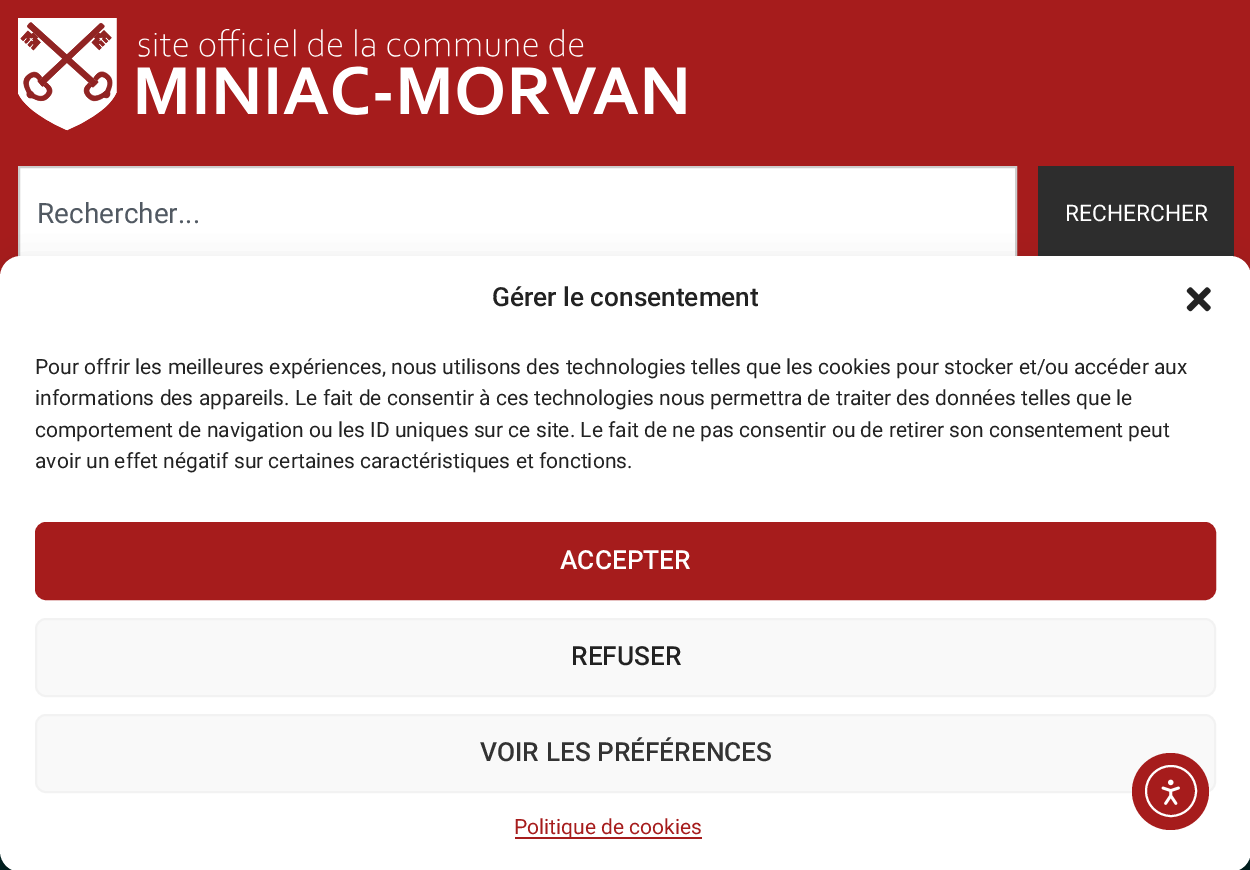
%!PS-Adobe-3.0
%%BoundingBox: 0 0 1250 870
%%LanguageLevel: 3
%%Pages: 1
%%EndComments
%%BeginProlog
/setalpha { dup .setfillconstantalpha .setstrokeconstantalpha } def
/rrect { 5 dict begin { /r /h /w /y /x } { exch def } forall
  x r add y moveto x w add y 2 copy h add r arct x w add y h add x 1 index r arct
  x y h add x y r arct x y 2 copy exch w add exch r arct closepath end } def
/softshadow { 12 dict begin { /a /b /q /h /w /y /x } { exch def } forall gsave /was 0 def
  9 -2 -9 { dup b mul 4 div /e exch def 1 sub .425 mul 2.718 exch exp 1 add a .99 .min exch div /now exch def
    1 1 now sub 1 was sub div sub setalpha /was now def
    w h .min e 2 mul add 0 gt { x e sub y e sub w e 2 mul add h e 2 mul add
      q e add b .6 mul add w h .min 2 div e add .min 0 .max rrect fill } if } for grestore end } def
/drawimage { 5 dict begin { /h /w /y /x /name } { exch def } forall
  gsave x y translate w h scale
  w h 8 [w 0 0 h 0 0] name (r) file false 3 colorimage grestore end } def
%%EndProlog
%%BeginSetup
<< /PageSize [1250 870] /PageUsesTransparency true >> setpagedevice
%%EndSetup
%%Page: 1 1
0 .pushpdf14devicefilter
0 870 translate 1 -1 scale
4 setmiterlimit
0.651 0.11 0.11 setrgbcolor
0 0 1250 870 rectfill
(images/1.raw) 18 18 668 113 drawimage
1 setgray
newpath 19 167 moveto 1016 167 lineto 1016 258 lineto 19 258 lineto closepath gsave fill grestore
0.804 setgray
2 setlinewidth
stroke
0.176 setgray
1038 166 196 91 rectfill
0.004 0.149 0.149 setrgbcolor
0 851 1250 19 rectfill
0 setgray
0 266 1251 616 21 5 0.23 softshadow
0 273 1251 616 21 17.5 0.19 softshadow
1 setgray
0 256 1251 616 21 rrect fill
(images/2.raw) 1186 287 25 25 drawimage
0.651 0.11 0.11 setrgbcolor
36 523 1179 76 10 rrect gsave fill grestore
stroke
0.976 setgray
36 619 1179 77 10 rrect gsave fill grestore
0.949 setgray
stroke
0.976 setgray
36 715 1179 77 10 rrect gsave fill grestore
0.949 setgray
stroke
0.651 0.11 0.11 setrgbcolor
515 837 187 2 rectfill
newpath 1170.5 791.5 38.5 0 360 arc closepath fill
1 setgray
newpath 1171 791 25 0 360 arc closepath stroke
(images/3.raw) 1161 779 19 26 drawimage
/Roboto-Regular [28 0 0 -28 0 0] selectfont
0.318 0.349 0.384 setrgbcolor
37 223 moveto (Rechercher...) show
/Roboto-Regular [22.75 0 0 -22.75 0 0] selectfont
1 setgray
1065 221 moveto (RECHERCHER) show
/Roboto-Medium [26.25 0 0 -26.25 0 0] selectfont
0.133 setgray
492 306 moveto (Gérer le consentement) show
/Roboto-Regular [21 0 0 -21 0 0] selectfont
35 374 moveto (Pour offrir les meilleures expériences, nous utilisons des technologies telles que les cookies pour stocker et/ou accéder aux) show
35 405 moveto (informations des appareils. Le fait de consentir à ces technologies nous permettra de traiter des données telles que le) show
35 437 moveto (comportement de navigation ou les ID uniques sur ce site. Le fait de ne pas consentir ou de retirer son consentement peut) show
35 468 moveto (avoir un effet négatif sur certaines caractéristiques et fonctions.) show
/Roboto-Medium [26.25 0 0 -26.25 0 0] selectfont
1 setgray
560 569 moveto (ACCEPTER) show
0.133 setgray
571 665 moveto (REFUSER) show
0.2 setgray
480 761 moveto (VOIR LES PRÉFÉRENCES) show
/Roboto-Regular [21 0 0 -21 0 0] selectfont
0.651 0.11 0.11 setrgbcolor
514 834 moveto (Politique de cookies) show
.poppdf14devicefilter showpage
%%EOF
